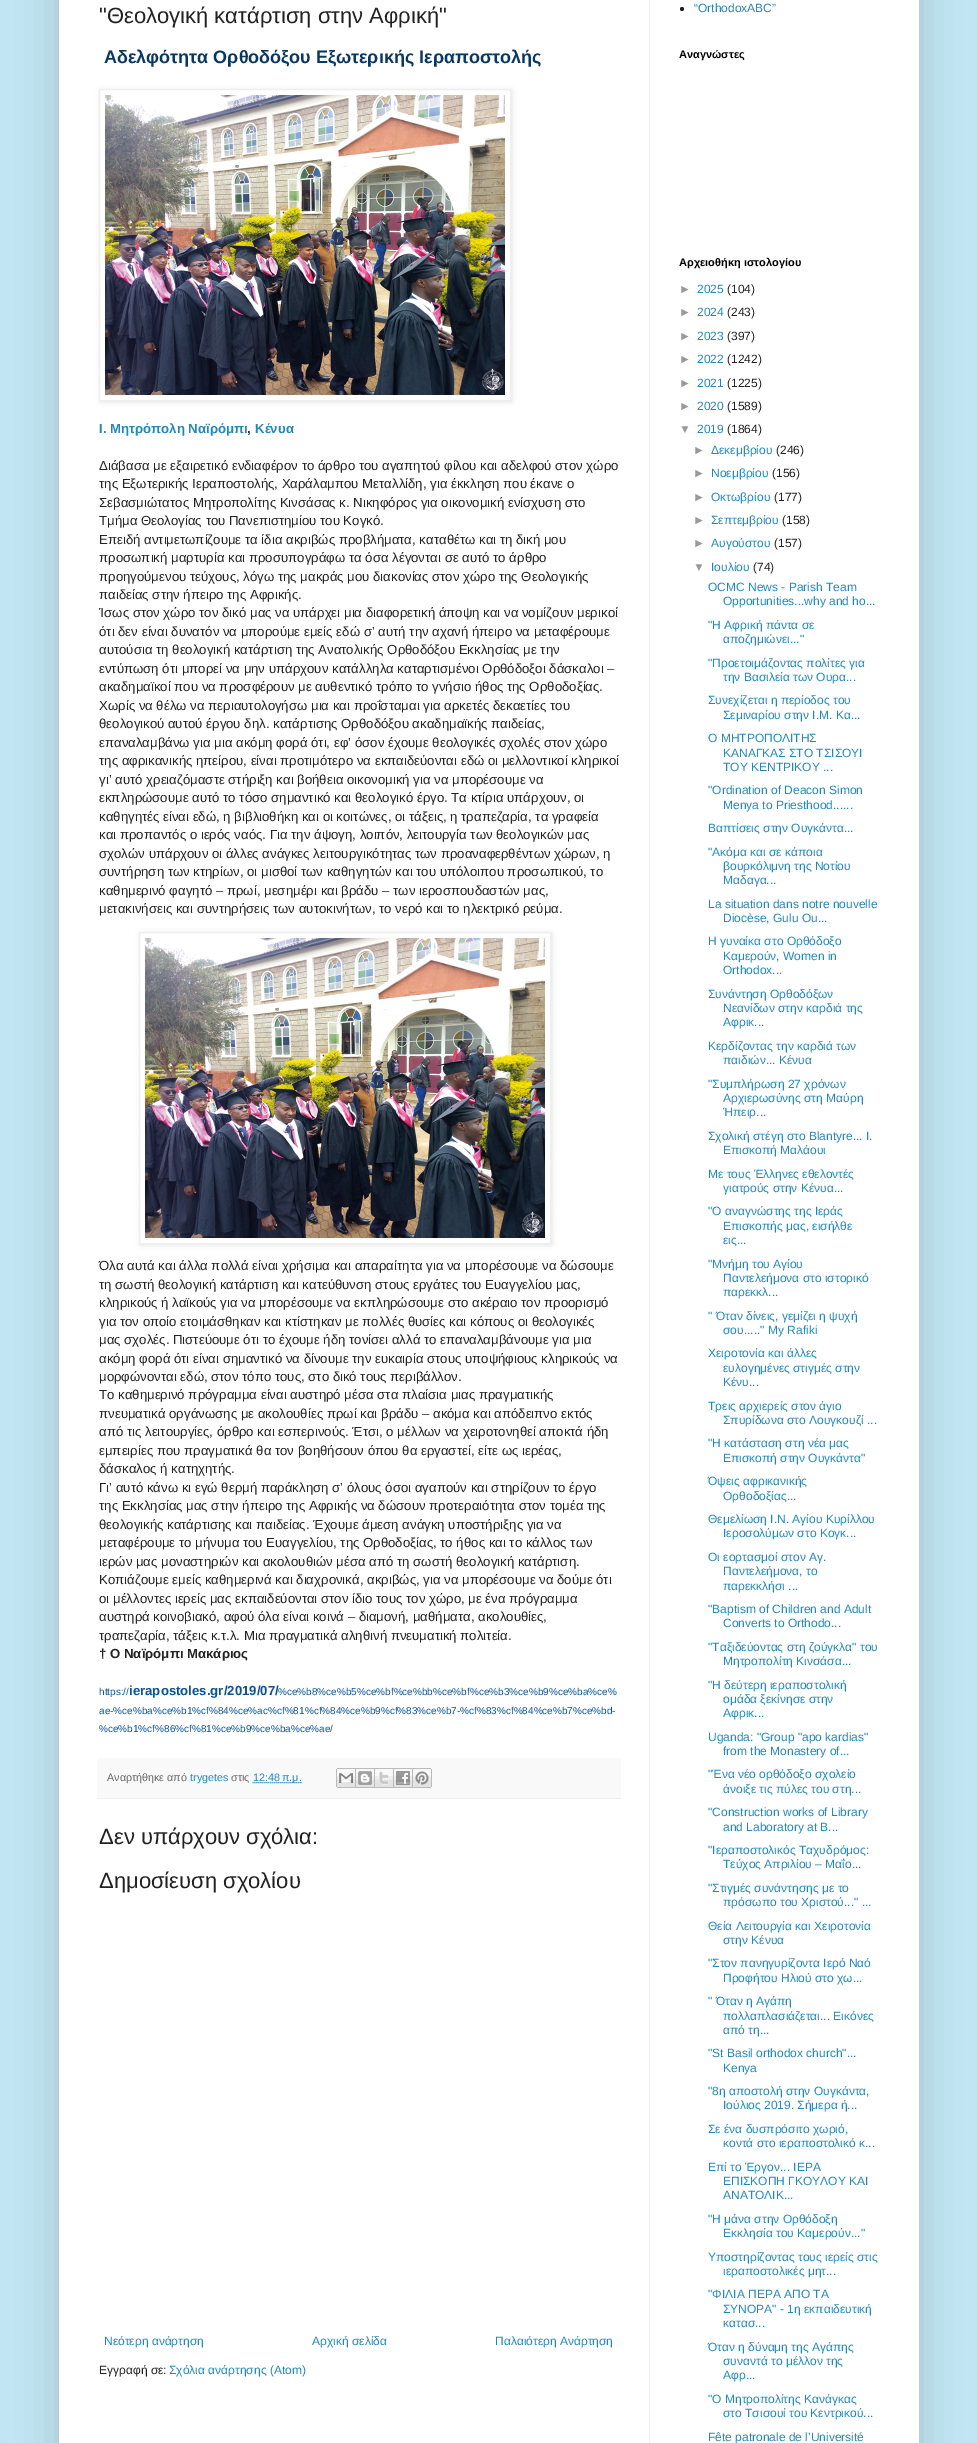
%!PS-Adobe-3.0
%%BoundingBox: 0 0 977 2443
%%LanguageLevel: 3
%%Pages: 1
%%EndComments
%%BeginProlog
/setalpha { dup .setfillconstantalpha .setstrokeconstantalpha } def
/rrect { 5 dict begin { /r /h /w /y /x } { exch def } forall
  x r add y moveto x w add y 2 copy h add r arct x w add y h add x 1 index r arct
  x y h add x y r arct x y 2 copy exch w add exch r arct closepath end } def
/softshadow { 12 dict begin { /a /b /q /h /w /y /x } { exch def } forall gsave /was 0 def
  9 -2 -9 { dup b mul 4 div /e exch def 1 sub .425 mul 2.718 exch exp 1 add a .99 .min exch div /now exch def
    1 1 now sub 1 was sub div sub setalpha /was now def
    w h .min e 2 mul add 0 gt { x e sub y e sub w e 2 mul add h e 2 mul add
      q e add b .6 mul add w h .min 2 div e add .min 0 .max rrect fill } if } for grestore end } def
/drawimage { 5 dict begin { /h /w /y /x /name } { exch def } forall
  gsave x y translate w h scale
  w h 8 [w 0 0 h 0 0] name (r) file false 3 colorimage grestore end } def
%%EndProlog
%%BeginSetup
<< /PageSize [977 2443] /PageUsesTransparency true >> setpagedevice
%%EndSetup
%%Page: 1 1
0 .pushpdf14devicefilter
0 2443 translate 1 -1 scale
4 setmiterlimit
0.757 0.898 0.949 setrgbcolor
0 0 977 2443 rectfill
0 setgray
59 -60 860 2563 0 20 0.15 softshadow
1 setgray
59 0 860 2443 rectfill
0.933 setgray
649 0 1 2443 rectfill
gsave
newpath 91 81 moveto 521 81 lineto 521 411 lineto 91 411 lineto closepath 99 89 moveto 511 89 lineto 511 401 lineto 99 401 lineto closepath eoclip newpath
0 setgray
100 90 412 312 0 2.5 0.1 softshadow
grestore
99.5 89.5 411 311 rectstroke
(images/1.raw) 105 95 400 300 drawimage
gsave
newpath 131 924 moveto 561 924 lineto 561 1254 lineto 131 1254 lineto closepath 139 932 moveto 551 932 lineto 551 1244 lineto 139 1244 lineto closepath eoclip newpath
0 setgray
140 933 412 312 0 2.5 0.1 softshadow
grestore
139.5 932.5 411 311 rectstroke
(images/1.raw) 145 938 400 300 drawimage
0.976 setgray
97 1758 524 40 rectfill
0.933 setgray
97 1798 524 1 rectfill
0.133 0.533 0.733 setrgbcolor
[1 1] 0 setdash
newpath 252.5 1782.5 moveto 301.5 1782.5 lineto stroke
(images/2.raw) 336 1768 20 20 drawimage
(images/3.raw) 356 1768 19 20 drawimage
(images/4.raw) 375 1768 19 20 drawimage
(images/5.raw) 394 1768 19 20 drawimage
(images/6.raw) 413 1768 19 20 drawimage
0.133 setgray
newpath 682 9 2 0 360 arc closepath fill
/LiberationSans-Regular [22 0 0 -22 0 0] selectfont
99 23 moveto ("Θεολογική κατάρτιση στην Αφρική") show
/LiberationSans-Bold [18 0 0 -18 0 0] selectfont
0.027 0.216 0.388 setrgbcolor
104 63 moveto (Αδελφότητα Ορθοδόξου Εξωτερικής Ιεραποστολής) show
/LiberationSans-Bold [13.2 0 0 -13.2 0 0] selectfont
0.133 0.533 0.733 setrgbcolor
99 433 moveto (Ι. Μητρόπολη Ναϊρόμπι) show
0.027 0.216 0.388 setrgbcolor
247 433 moveto (,) show
0.133 0.533 0.733 setrgbcolor
255 433 moveto (Κένυα) show
/LiberationSans-Regular [13.2 0 0 -13.2 0 0] selectfont
0.133 setgray
99 470 moveto (Διάβασα με εξαιρετικό ενδιαφέρον το άρθρο του αγαπητού φίλου και αδελφού στον χώρο) show
99 488 moveto (της Εξωτερικής Ιεραποστολής, Χαράλαμπου Μεταλλίδη, για έκκληση που έκανε ο) show
99 507 moveto (Σεβασμιώτατος Μητροπολίτης Κινσάσας κ. Νικηφόρος για οικονομική ενίσχυση στο) show
99 525 moveto (Τμήμα Θεολογίας του Πανεπιστημίου του Κογκό.) show
99 544 moveto (Επειδή αντιμετωπίζουμε τα ίδια ακριβώς προβλήματα, καταθέτω και τη δική μου) show
99 562 moveto (προσωπική μαρτυρία και προσυπογράφω τα όσα λέγονται σε αυτό το άρθρο) show
99 581 moveto (προηγούμενου τεύχους, λόγω της μακράς μου διακονίας στον χώρο της Θεολογικής) show
99 599 moveto (παιδείας στην ήπειρο της Αφρικής.) show
99 617 moveto (Ίσως στον χώρο τον δικό μας να υπάρχει μια διαφορετική άποψη και να νομίζουν μερικοί) show
99 636 moveto (ότι δεν είναι δυνατόν να μπορούμε εμείς εδώ σ’ αυτή την αχανή ήπειρο να μεταφέρουμε) show
99 654 moveto (αυτούσια τη θεολογική κατάρτιση της Ανατολικής Ορθοδόξου Εκκλησίας με την) show
99 673 moveto (εντύπωση ότι μπορεί να μην υπάρχουν κατάλληλα καταρτισμένοι Ορθόδοξοι δάσκαλοι –) show
99 691 moveto (ακαδημαϊκοί που να προσφέρουν με αυθεντικό τρόπο το γνήσιο ήθος της Ορθοδοξίας.) show
99 710 moveto (Χωρίς να θέλω να περιαυτολογήσω μια και προΐσταμαι για αρκετές δεκαετίες του) show
99 728 moveto (θεολογικού αυτού έργου δηλ. κατάρτισης Ορθοδόξου ακαδημαϊκής παιδείας,) show
99 747 moveto (επαναλαμβάνω για μια ακόμη φορά ότι, εφ’ όσον έχουμε θεολογικές σχολές στον χώρο) show
99 765 moveto (της αφρικανικής ηπείρου, είναι προτιμότερο να εκπαιδεύονται εδώ οι μελλοντικοί κληρικοί) show
99 784 moveto (γι’ αυτό χρειαζόμαστε στήριξη και βοήθεια οικονομική για να μπορέσουμε να) show
99 802 moveto (εκπληρώσουμε αυτό το τόσο σημαντικό και θεολογικό έργο. Τα κτίρια υπάρχουν, οι) show
99 821 moveto (καθηγητές είναι εδώ, η βιβλιοθήκη και οι κοιτώνες, οι τάξεις, η τραπεζαρία, τα γραφεία) show
99 839 moveto (και προπαντός ο ιερός ναός. Για την άψογη, λοιπόν, λειτουργία των θεολογικών μας) show
99 858 moveto (σχολών υπάρχουν οι άλλες ανάγκες λειτουργικότητας των προαναφερθέντων χώρων, η) show
99 876 moveto (συντήρηση των κτηρίων, οι μισθοί των καθηγητών και του υπόλοιπου προσωπικού, το) show
99 895 moveto (καθημερινό φαγητό – πρωί, μεσημέρι και βράδυ – των ιεροσπουδαστών μας,) show
99 913 moveto (μετακινήσεις και συντηρήσεις των αυτοκινήτων, το νερό και το ηλεκτρικό ρεύμα.) show
99 1270 moveto (Όλα αυτά και άλλα πολλά είναι χρήσιμα και απαραίτητα για να μπορέσουμε να δώσουμε) show
99 1289 moveto (τη σωστή θεολογική κατάρτιση και κατεύθυνση στους εργάτες του Ευαγγελίου μας,) show
99 1307 moveto (κληρικούς ή λαϊκούς για να μπορέσουμε να εκπληρώσουμε στο ακέραιο τον προορισμό) show
99 1326 moveto (για τον οποίο ετοιμάσθηκαν και κτίστηκαν με πολλές θυσίες και κόπους οι θεολογικές) show
99 1344 moveto (μας σχολές. Πιστεύουμε ότι το έχουμε ήδη τονίσει αλλά το επαναλαμβάνουμε για μια) show
99 1363 moveto (ακόμη φορά ότι είναι σημαντικό να δίνουμε την ευκαιρία στους υποψήφιους κληρικούς να) show
99 1381 moveto (μορφώνονται εδώ, στον τόπο τους, στο δικό τους περιβάλλον.) show
99 1399 moveto (Το καθημερινό πρόγραμμα είναι αυστηρό μέσα στα πλαίσια μιας πραγματικής) show
99 1418 moveto (πνευματικά οργάνωσης με ακολουθίες πρωί και βράδυ – ακόμα και απόδειπνο εκτός) show
99 1436 moveto (από τις λειτουργίες, όρθρο και εσπερινούς. Έτσι, ο μέλλων να χειροτονηθεί αποκτά ήδη) show
99 1455 moveto (εμπειρίες που πραγματικά θα τον βοηθήσουν όπου θα εργαστεί, είτε ως ιερέας,) show
99 1473 moveto (δάσκαλος ή κατηχητής.) show
99 1492 moveto (Γι’ αυτό κάνω κι εγώ θερμή παράκληση σ’ όλους όσοι αγαπούν και στηρίζουν το έργο) show
99 1510 moveto (της Εκκλησίας μας στην ήπειρο της Αφρικής να δώσουν προτεραιότητα στον τομέα της) show
99 1529 moveto (θεολογικής κατάρτισης και παιδείας. Έχουμε άμεση ανάγκη υποστήριξης για να) show
99 1547 moveto (μεταφέρουμε το μήνυμα του Ευαγγελίου, της Ορθοδοξίας, το ήθος και το κάλλος των) show
99 1566 moveto (ιερών μας μοναστηριών και ακολουθιών μέσα από τη σωστή θεολογική κατάρτιση.) show
99 1584 moveto (Κοπιάζουμε εμείς καθημερινά και διαχρονικά, ακριβώς, για να μπορέσουμε να δούμε ότι) show
99 1603 moveto (οι μέλλοντες ιερείς μας εκπαιδεύονται στον ίδιο τους τον χώρο, με ένα πρόγραμμα) show
99 1621 moveto (αυστηρά κοινοβιακό, αφού όλα είναι κοινά – διαμονή, μαθήματα, ακολουθίες,) show
99 1640 moveto (τραπεζαρία, τάξεις κ.τ.λ. Μια πραγματικά αληθινή πνευματική πολιτεία.) show
/LiberationSans-Bold [13.2 0 0 -13.2 0 0] selectfont
99 1658 moveto († Ο Ναϊρόμπι Μακάριος) show
/LiberationSans-Regular [10 0 0 -10 0 0] selectfont
0.043 0.325 0.58 setrgbcolor
99 1695 moveto (https://) show
/LiberationSans-Bold [13.2 0 0 -13.2 0 0] selectfont
129 1695 moveto (ierapostoles.gr/2019/07/) show
/LiberationSans-Regular [10 0 0 -10 0 0] selectfont
278 1695 moveto (%ce%b8%ce%b5%ce%bf%ce%bb%ce%bf%ce%b3%ce%b9%ce%ba%ce%) show
99 1714 moveto (ae-%ce%ba%ce%b1%cf%84%ce%ac%cf%81%cf%84%ce%b9%cf%83%ce%b7-%cf%83%cf%84%ce%b7%ce%bd-) show
99 1732 moveto (%ce%b1%cf%86%cf%81%ce%b9%ce%ba%ce%ae/) show
/LiberationSans-Regular [10.75 0 0 -10.75 0 0] selectfont
0.4 setgray
107 1781 moveto (Αναρτήθηκε από) show
0.133 0.533 0.733 setrgbcolor
190 1781 moveto (trygetes) show
0.4 setgray
231 1781 moveto (στις) show
0.133 0.533 0.733 setrgbcolor
253 1781 moveto (12:48 π.μ.) show
/LiberationSans-Regular [22 0 0 -22 0 0] selectfont
0.133 setgray
99 1844 moveto (Δεν υπάρχουν σχόλια:) show
99 1888 moveto (Δημοσίευση σχολίου) show
/LiberationSans-Regular [12 0 0 -12 0 0] selectfont
0.133 0.533 0.733 setrgbcolor
104 2345 moveto (Νεότερη ανάρτηση) show
312 2345 moveto (Αρχική σελίδα) show
495 2345 moveto (Παλαιότερη Ανάρτηση) show
0.133 setgray
99 2374 moveto (Εγγραφή σε:) show
0.133 0.533 0.733 setrgbcolor
169 2374 moveto (Σχόλια ανάρτησης \(Atom\)) show
694 12 moveto (“OrthodoxABC”) show
/LiberationSans-Bold [11 0 0 -11 0 0] selectfont
0 setgray
679 58 moveto (Αναγνώστες) show
679 266 moveto (Αρχειοθήκη ιστολογίου) show
/LiberationSans-Regular [12 0 0 -12 0 0] selectfont
0.6 setgray
679 293 moveto (►) show
0.133 0.533 0.733 setrgbcolor
697 293 moveto (2025) show
0.133 setgray
727 293 moveto (\(104\)) show
0.6 setgray
679 316 moveto (►) show
0.133 0.533 0.733 setrgbcolor
697 316 moveto (2024) show
0.133 setgray
727 316 moveto (\(243\)) show
0.6 setgray
679 340 moveto (►) show
0.133 0.533 0.733 setrgbcolor
697 340 moveto (2023) show
0.133 setgray
727 340 moveto (\(397\)) show
0.6 setgray
679 363 moveto (►) show
0.133 0.533 0.733 setrgbcolor
697 363 moveto (2022) show
0.133 setgray
727 363 moveto (\(1242\)) show
0.6 setgray
679 387 moveto (►) show
0.133 0.533 0.733 setrgbcolor
697 387 moveto (2021) show
0.133 setgray
727 387 moveto (\(1225\)) show
0.6 setgray
679 410 moveto (►) show
0.133 0.533 0.733 setrgbcolor
697 410 moveto (2020) show
0.133 setgray
727 410 moveto (\(1589\)) show
0.6 setgray
679 433 moveto (▼) show
0.133 0.533 0.733 setrgbcolor
697 433 moveto (2019) show
0.133 setgray
727 433 moveto (\(1864\)) show
0.6 setgray
693 454 moveto (►) show
0.133 0.533 0.733 setrgbcolor
711 454 moveto (Δεκεμβρίου) show
0.133 setgray
776 454 moveto (\(246\)) show
0.6 setgray
693 477 moveto (►) show
0.133 0.533 0.733 setrgbcolor
711 477 moveto (Νοεμβρίου) show
0.133 setgray
772 477 moveto (\(156\)) show
0.6 setgray
693 501 moveto (►) show
0.133 0.533 0.733 setrgbcolor
711 501 moveto (Οκτωβρίου) show
0.133 setgray
774 501 moveto (\(177\)) show
0.6 setgray
693 524 moveto (►) show
0.133 0.533 0.733 setrgbcolor
711 524 moveto (Σεπτεμβρίου) show
0.133 setgray
782 524 moveto (\(158\)) show
0.6 setgray
693 547 moveto (►) show
0.133 0.533 0.733 setrgbcolor
711 547 moveto (Αυγούστου) show
0.133 setgray
774 547 moveto (\(157\)) show
0.6 setgray
693 571 moveto (▼) show
0.133 0.533 0.733 setrgbcolor
711 571 moveto (Ιουλίου) show
0.133 setgray
753 571 moveto (\(74\)) show
0.133 0.533 0.733 setrgbcolor
708 591 moveto (OCMC News - Parish Team) show
723 605 moveto (Opportunities...why and ho...) show
708 629 moveto ("Η Αφρική πάντα σε) show
723 643 moveto (αποζημιώνει...") show
708 667 moveto ("Προετοιμάζοντας πολίτες για) show
723 681 moveto (την Βασιλεία των Ουρα...) show
708 704 moveto (Συνεχίζεται η περίοδος του) show
723 719 moveto (Σεμιναρίου στην Ι.Μ. Κα...) show
708 742 moveto (Ο ΜΗΤΡΟΠΟΛΙΤΗΣ) show
723 757 moveto (ΚΑΝΑΓΚΑΣ ΣΤΟ ΤΣΙΣΟΥΙ) show
723 771 moveto (ΤΟΥ ΚΕΝΤΡΙΚΟΥ ...) show
708 794 moveto ("Ordination of Deacon Simon) show
723 809 moveto (Menya to Priesthood......) show
708 832 moveto (Βαπτίσεις στην Ουγκάντα...) show
708 856 moveto ("Ακόμα και σε κάποια) show
723 870 moveto (βουρκόλιμνη της Νοτίου) show
723 884 moveto (Μαδαγα...) show
708 908 moveto (La situation dans notre nouvelle) show
723 922 moveto (Diocèse, Gulu Ou...) show
708 945 moveto (Η γυναίκα στο Ορθόδοξο) show
723 960 moveto (Καμερούν, Women in) show
723 974 moveto (Orthodox...) show
708 998 moveto (Συνάντηση Ορθοδόξων) show
723 1012 moveto (Νεανίδων στην καρδιά της) show
723 1026 moveto (Αφρικ...) show
708 1050 moveto (Κερδίζοντας την καρδιά των) show
723 1064 moveto (παιδιών... Κένυα) show
708 1088 moveto ("Συμπλήρωση 27 χρόνων) show
723 1102 moveto (Αρχιερωσύνης στη Μαύρη) show
723 1116 moveto (Ήπειρ...) show
708 1140 moveto (Σχολική στέγη στο Blantyre... Ι.) show
723 1154 moveto (Επισκοπή Μαλάουι) show
708 1178 moveto (Με τους Έλληνες εθελοντές) show
723 1192 moveto (γιατρούς στην Κένυα...) show
708 1215 moveto ("Ο αναγνώστης της Ιεράς) show
723 1230 moveto (Επισκοπής μας, εισήλθε) show
723 1244 moveto (εις...) show
708 1268 moveto ("Μνήμη του Αγίου) show
723 1282 moveto (Παντελεήμονα στο ιστορικό) show
723 1296 moveto (παρεκκλ...) show
708 1320 moveto (" Όταν δίνεις, γεμίζει η ψυχή) show
723 1334 moveto (σου....." My Rafiki) show
708 1357 moveto (Χειροτονία και άλλες) show
723 1372 moveto (ευλογημένες στιγμές στην) show
723 1386 moveto (Κένυ...) show
708 1410 moveto (Τρεις αρχιερείς στον άγιο) show
723 1424 moveto (Σπυρίδωνα στο Λουγκουζί ...) show
708 1447 moveto ("Η κατάσταση στη νέα μας) show
723 1462 moveto (Επισκοπή στην Ουγκάντα") show
708 1485 moveto (Όψεις αφρικανικής) show
723 1500 moveto (Ορθοδοξίας...) show
708 1523 moveto (Θεμελίωση Ι.Ν. Αγίου Κυρίλλου) show
723 1537 moveto (Ιεροσολύμων στο Κογκ...) show
708 1561 moveto (Οι εορτασμοί στον Αγ.) show
723 1575 moveto (Παντελεήμονα, το) show
723 1590 moveto (παρεκκλήσι ...) show
708 1613 moveto ("Baptism of Children and Adult) show
723 1627 moveto (Converts to Orthodo...) show
708 1651 moveto ("Ταξιδεύοντας στη ζούγκλα" του) show
723 1665 moveto (Μητροπολίτη Κινσάσα...) show
708 1689 moveto ("Η δεύτερη ιεραποστολική) show
723 1703 moveto (ομάδα ξεκίνησε στην) show
723 1717 moveto (Αφρικ...) show
708 1741 moveto (Uganda: "Group "apo kardias") show
723 1755 moveto (from the Monastery of...) show
708 1778 moveto ("Ένα νέο ορθόδοξο σχολείο) show
723 1793 moveto (άνοιξε τις πύλες του στη...) show
708 1816 moveto ("Construction works of Library) show
723 1831 moveto (and Laboratory at B...) show
708 1854 moveto ("Ιεραποστολικός Ταχυδρόμος:) show
723 1868 moveto (Τεύχος Απριλίου – Μαΐο...) show
708 1892 moveto ("Στιγμές συνάντησης με το) show
723 1906 moveto (πρόσωπο του Χριστού..." ...) show
708 1930 moveto (Θεία Λειτουργία και Χειροτονία) show
723 1944 moveto (στην Κένυα) show
708 1967 moveto ("Στον πανηγυρίζοντα Ιερό Ναό) show
723 1982 moveto (Προφήτου Ηλιού στο χω...) show
708 2005 moveto (" Όταν η Αγάπη) show
723 2020 moveto (πολλαπλασιάζεται... Εικόνες) show
723 2034 moveto (από τη...) show
708 2057 moveto ("St Basil orthodox church"...) show
723 2072 moveto (Kenya) show
708 2095 moveto ("8η αποστολή στην Ουγκάντα,) show
723 2109 moveto (Ιούλιος 2019. Σήμερα ή...) show
708 2133 moveto (Σε ένα δυσπρόσιτο χωριό,) show
723 2147 moveto (κοντά στο ιεραποστολικό κ...) show
708 2171 moveto (Επί το Έργον... IΕΡΑ) show
723 2185 moveto (ΕΠΙΣΚΟΠΗ ΓΚΟΥΛΟΥ ΚΑΙ) show
723 2199 moveto (ΑΝΑΤΟΛΙΚ...) show
708 2223 moveto ("Η μάνα στην Ορθόδοξη) show
723 2237 moveto (Εκκλησία του Καμερούν...") show
708 2261 moveto (Υποστηρίζοντας τους ιερείς στις) show
723 2275 moveto (ιεραποστολικές μητ...) show
708 2298 moveto ("ΦΙΛΙΑ ΠΕΡΑ ΑΠΟ ΤΑ) show
723 2313 moveto (ΣΥΝΟΡΑ" - 1η εκπαιδευτική) show
723 2327 moveto (κατασ...) show
708 2351 moveto (Όταν η δύναμη της Αγάπης) show
723 2365 moveto (συναντά το μέλλον της) show
723 2379 moveto (Αφρ...) show
708 2403 moveto ("Ο Μητροπολίτης Κανάγκας) show
723 2417 moveto (στο Τσισουί του Κεντρικού...) show
708 2441 moveto (Fête patronale de l’Université) show
.poppdf14devicefilter showpage
%%EOF
